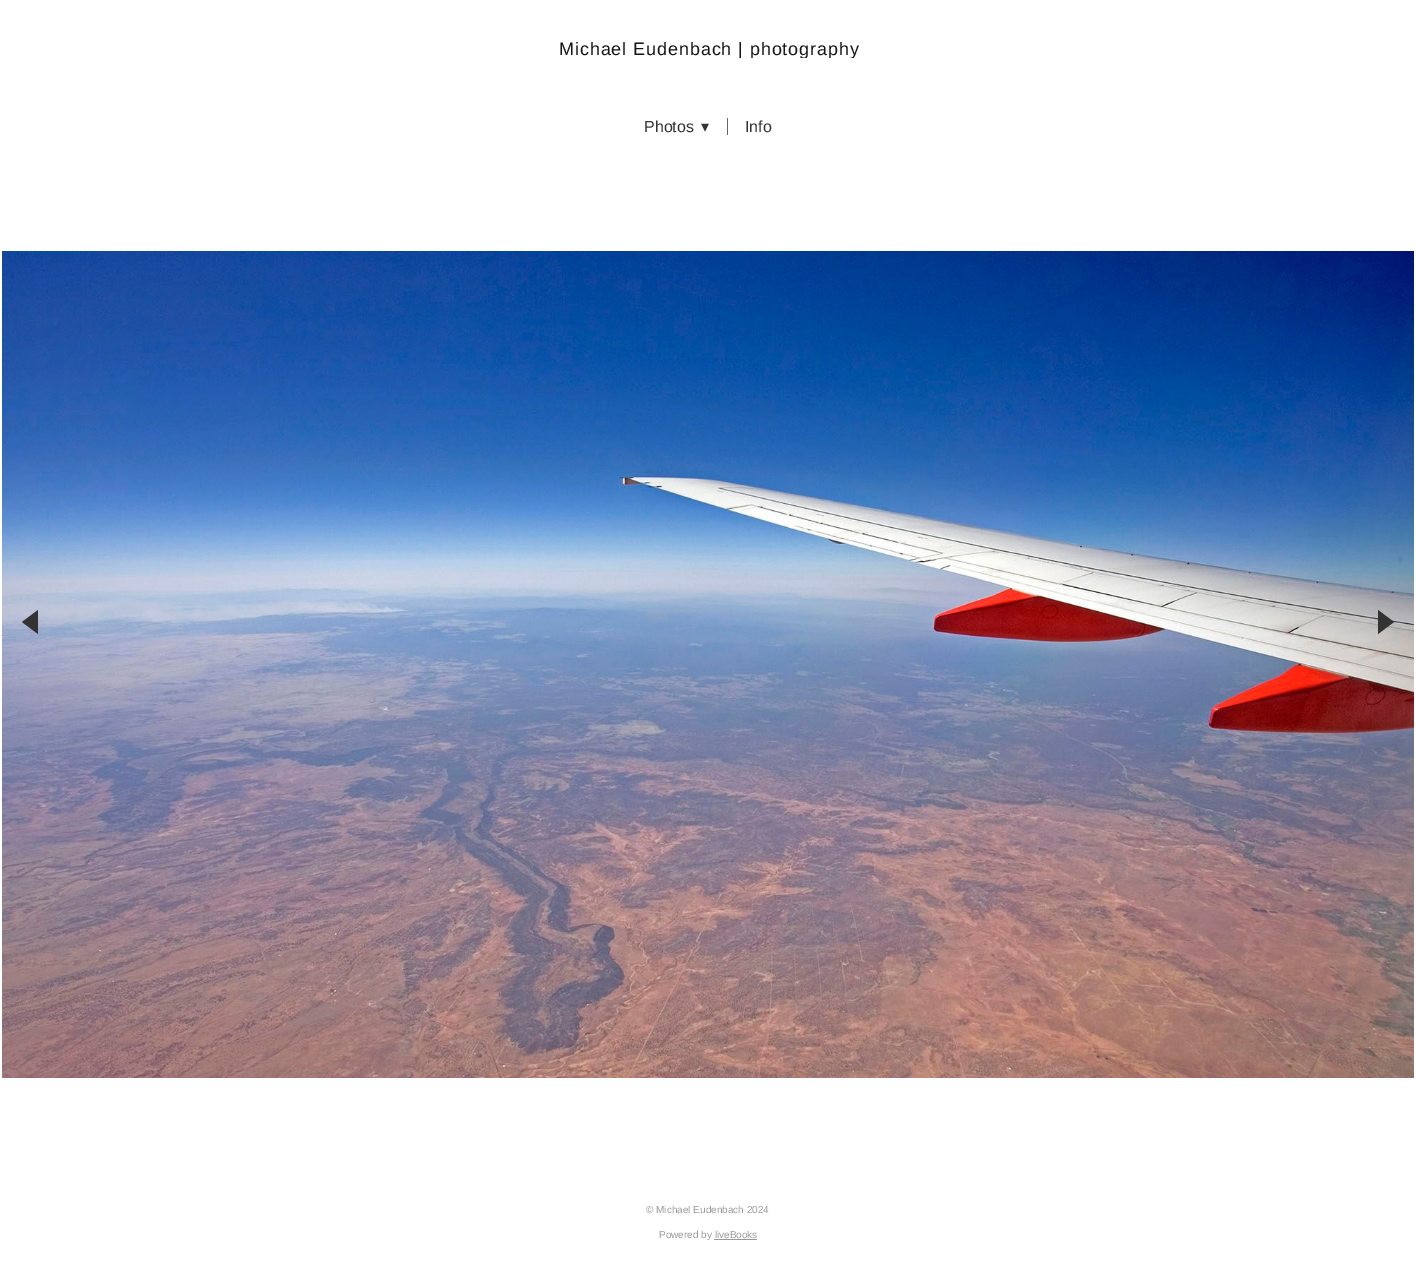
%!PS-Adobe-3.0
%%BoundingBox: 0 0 1416 1280
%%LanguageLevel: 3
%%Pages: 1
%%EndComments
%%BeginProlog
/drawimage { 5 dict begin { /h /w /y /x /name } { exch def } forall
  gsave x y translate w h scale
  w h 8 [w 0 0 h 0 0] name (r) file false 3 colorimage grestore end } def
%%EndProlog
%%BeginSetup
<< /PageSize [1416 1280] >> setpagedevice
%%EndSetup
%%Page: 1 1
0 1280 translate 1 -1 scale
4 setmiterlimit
1 setgray
0 0 1416 1280 rectfill
0.4 setgray
727 118 1 17 rectfill
(images/1.raw) 2 251 1412 827 drawimage
0.2 setgray
newpath 22 622 moveto 38 634 lineto 38 610 lineto 22 622 lineto fill
newpath 1394 622 moveto 1378 634 lineto 1378 610 lineto 1394 622 lineto fill
0.6 setgray
714 1239 43 1 rectfill
gsave
57 40 1302 18 rectclip
/LiberationSans-Regular [18 0 0 -18 0 0] selectfont
0.09 setgray
559 55 moveto 0.9 0 (Michael Eudenbach | photography) ashow
grestore
/LiberationSans-Regular [16 0 0 -16 0 0] selectfont
0.2 setgray
644 132 moveto (Photos) show
/DejaVuSans-Regular [16 0 0 -16 0 0] selectfont
701 132 moveto (▾) show
/LiberationSans-Regular [16 0 0 -16 0 0] selectfont
745 132 moveto (Info) show
/LiberationSans-Regular [10 0 0 -10 0 0] selectfont
0.6 setgray
646 1213 moveto (© Michael Eudenbach 2024) show
659 1238 moveto (Powered by liveBooks) show
showpage
%%EOF
